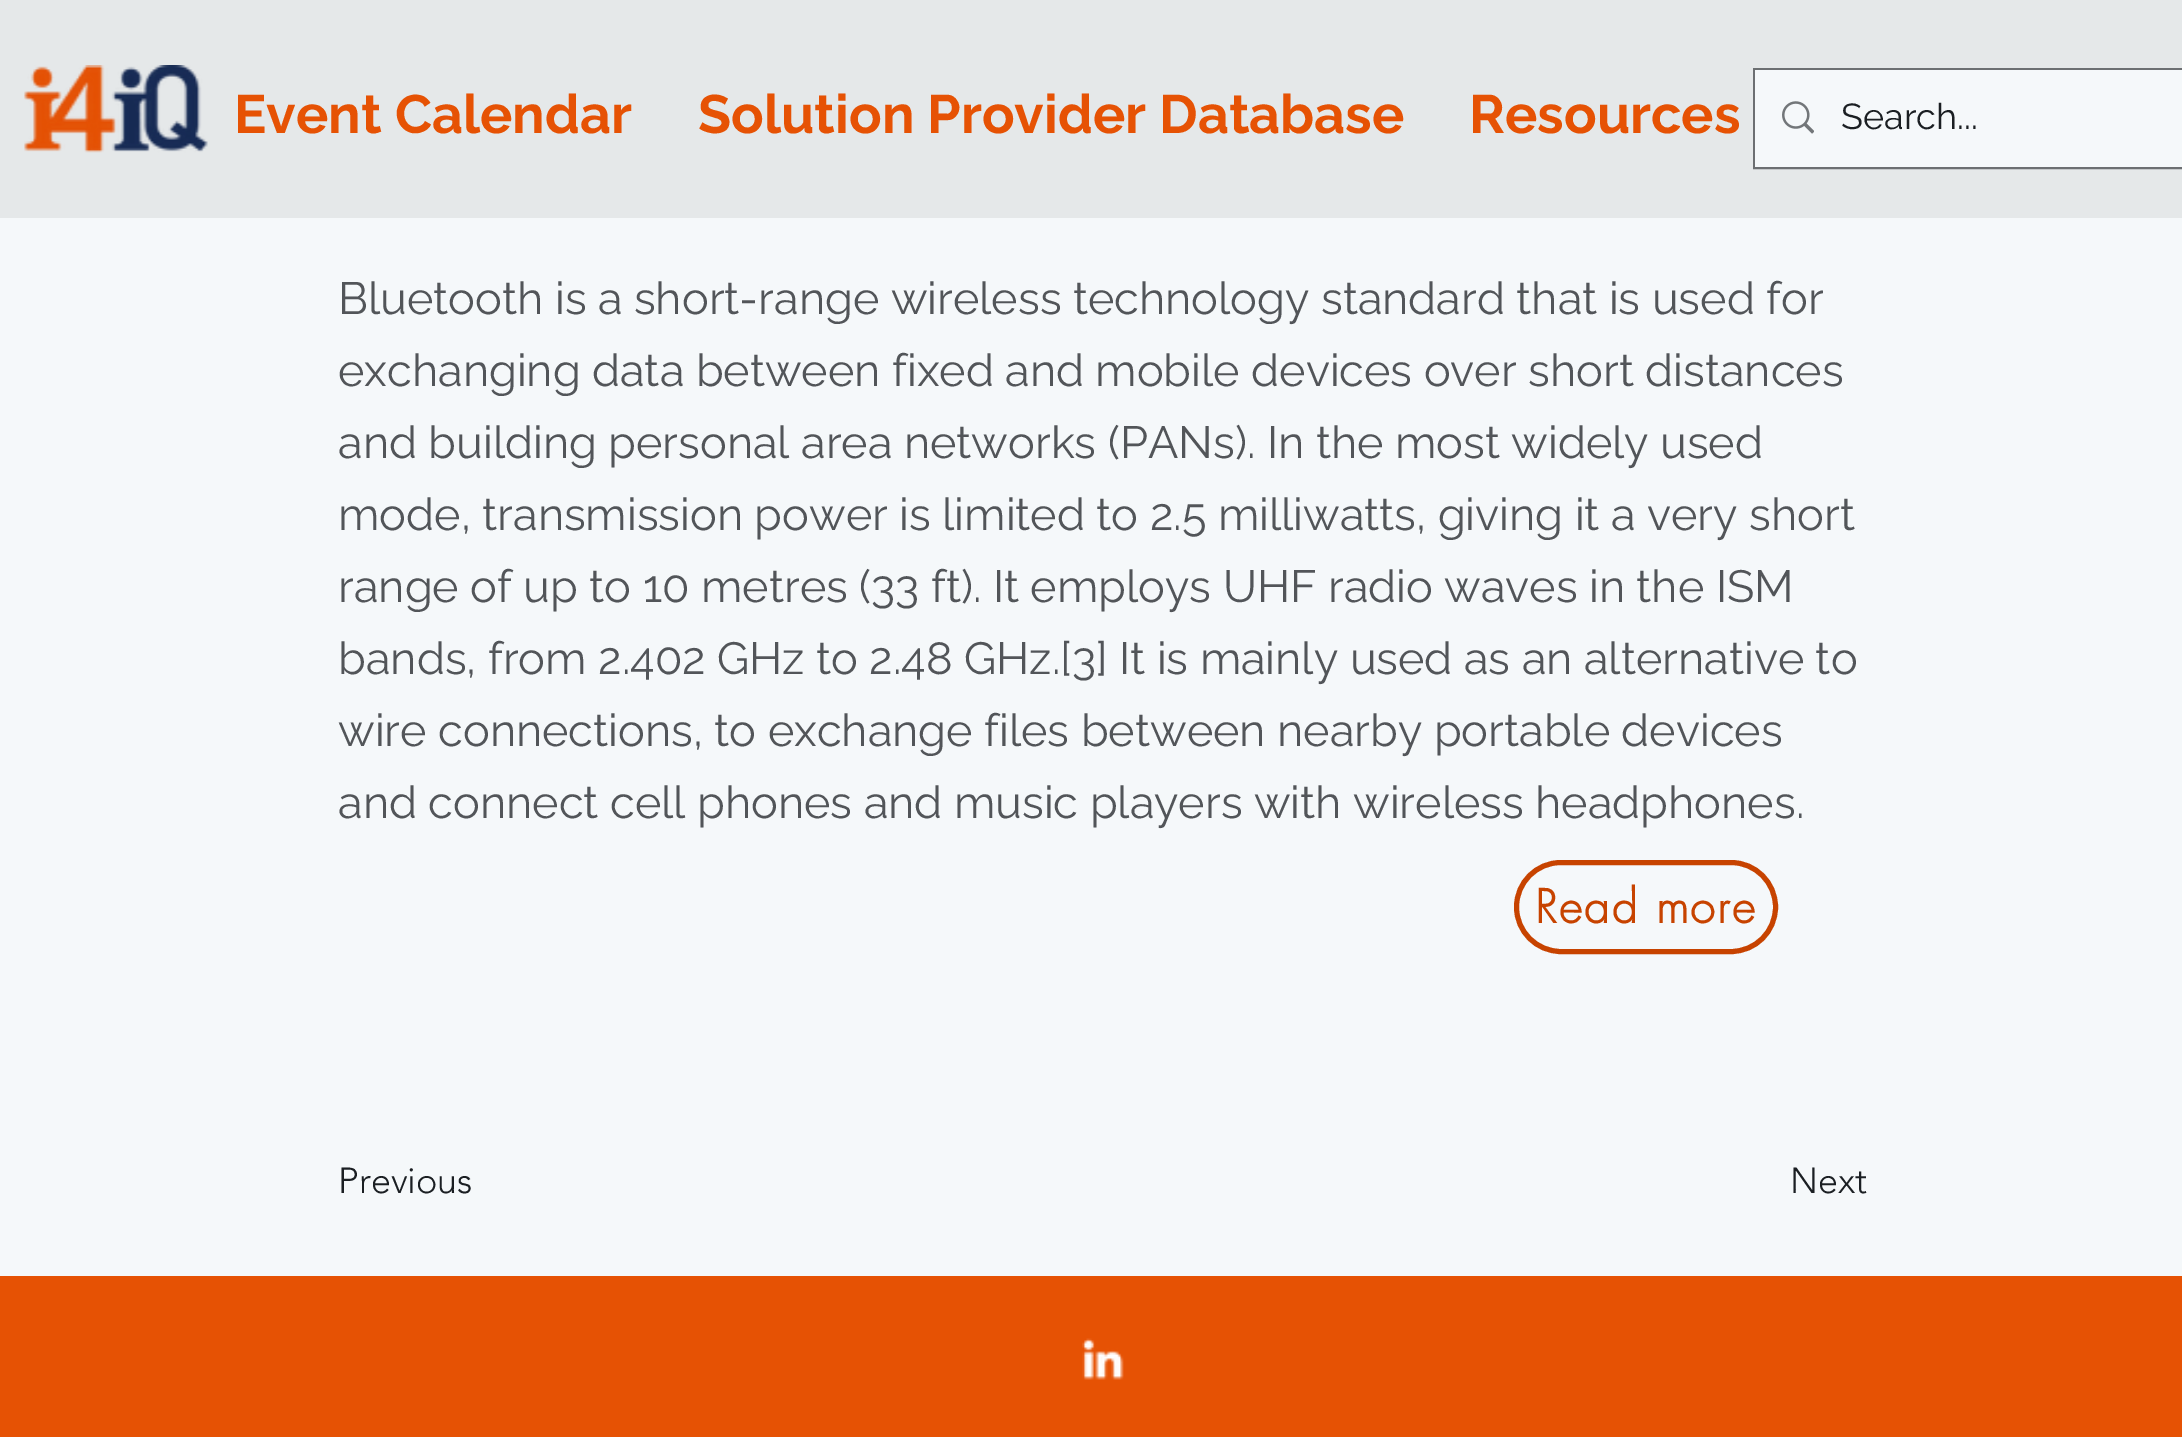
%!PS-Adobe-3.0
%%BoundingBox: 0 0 2182 1437
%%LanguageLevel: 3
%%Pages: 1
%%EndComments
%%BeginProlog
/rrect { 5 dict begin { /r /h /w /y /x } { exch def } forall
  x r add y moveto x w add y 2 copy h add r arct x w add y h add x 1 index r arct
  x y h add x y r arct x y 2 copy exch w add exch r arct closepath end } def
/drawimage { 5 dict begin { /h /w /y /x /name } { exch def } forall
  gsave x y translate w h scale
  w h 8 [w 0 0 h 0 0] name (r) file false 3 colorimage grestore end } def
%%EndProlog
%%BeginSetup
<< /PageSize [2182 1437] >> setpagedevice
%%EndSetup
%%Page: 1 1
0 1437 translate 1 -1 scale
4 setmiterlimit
0.961 0.973 0.98 setrgbcolor
0 0 2182 1437 rectfill
0.898 0.91 0.914 setrgbcolor
0 0 2182 218 rectfill
(images/1.raw) 24 65 184 88 drawimage
0.424 0.435 0.447 setrgbcolor
2 setlinewidth
1754 69 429 99 rectstroke
0.961 0.973 0.98 setrgbcolor
1755 70 427 97 rectfill
(images/2.raw) 1782 101 32 33 drawimage
0.78 0.263 0 setrgbcolor
5 setlinewidth
1516.5 862.5 259 89 44.5 rrect stroke
0.902 0.322 0.016 setrgbcolor
0 1276 2182 161 rectfill
(images/3.raw) 1082 1338 42 42 drawimage
/Raleway-Bold [54 0 0 -54 0 0] selectfont
234 133 moveto (Event Calendar) show
698 133 moveto (Solution Provider Database) show
1469 133 moveto (Resources) show
/Raleway-Regular [36 0 0 -36 0 0] selectfont
0.106 0.122 0.137 setrgbcolor
1841 129 moveto (Search...) show
/Raleway-Regular [45 0 0 -45 0 0] selectfont
0.322 0.333 0.349 setrgbcolor
338 314 moveto (Bluetooth is a short-range wireless technology standard that is used for) show
338 386 moveto (exchanging data between fixed and mobile devices over short distances) show
338 458 moveto (and building personal area networks \(PANs\). In the most widely used) show
338 530 moveto (mode, transmission power is limited to 2.5 milliwatts, giving it a very short) show
338 602 moveto (range of up to 10 metres \(33 ft\). It employs UHF radio waves in the ISM) show
338 674 moveto (bands, from 2.402 GHz to 2.48 GHz.[3] It is mainly used as an alternative to) show
338 746 moveto (wire connections, to exchange files between nearby portable devices) show
338 818 moveto (and connect cell phones and music players with wireless headphones.) show
/futura-Bold [45 0 0 -45 0 0] selectfont
0.78 0.263 0 setrgbcolor
1535 923 moveto 2.25 0 (Read more) ashow
/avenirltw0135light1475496-Light [36 0 0 -36 0 0] selectfont
0.106 0.122 0.137 setrgbcolor
338 1193 moveto (Previous) show
1790 1193 moveto (Next) show
showpage
%%EOF
